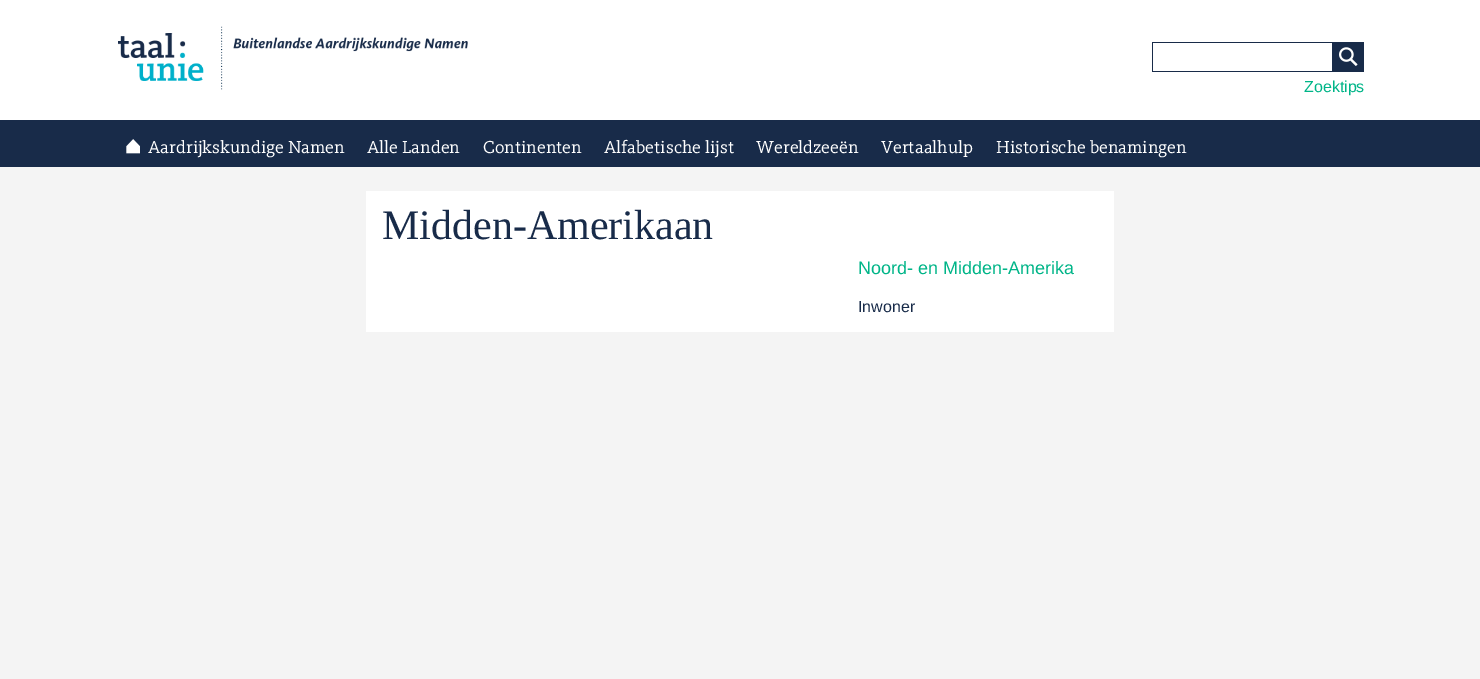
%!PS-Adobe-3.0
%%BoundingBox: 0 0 1480 679
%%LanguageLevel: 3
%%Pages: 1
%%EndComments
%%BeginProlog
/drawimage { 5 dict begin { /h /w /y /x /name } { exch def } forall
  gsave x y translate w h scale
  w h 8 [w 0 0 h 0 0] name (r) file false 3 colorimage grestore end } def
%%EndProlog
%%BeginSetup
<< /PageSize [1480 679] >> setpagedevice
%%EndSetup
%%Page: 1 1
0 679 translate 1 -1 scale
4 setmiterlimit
0.957 setgray
0 0 1480 679 rectfill
1 setgray
0 0 1480 120 rectfill
(images/1.raw) 118 26 350 64 drawimage
0.094 0.169 0.286 setrgbcolor
1152 42 180 1 rectfill
1152 71 180 1 rectfill
1152 42 1 30 rectfill
1332 42 32 30 rectfill
(images/2.raw) 1339 47 19 19 drawimage
0 120 1480 47 rectfill
(images/3.raw) 126 139 14 15 drawimage
1 setgray
366 191 748 141 rectfill
/LiberationSans-Regular [16 0 0 -16 0 0] selectfont
0 0.71 0.533 setrgbcolor
1304 92 moveto (Zoektips) show
/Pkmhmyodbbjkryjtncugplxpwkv-Regular [18 0 0 -18 0 0] selectfont
1 setgray
148 153 moveto (Aardrijkskundige Namen) show
367 153 moveto (Alle Landen) show
483 153 moveto (Continenten) show
604 153 moveto (Alfabetische lijst) show
756 153 moveto (Wereldzeeën) show
881 153 moveto (Vertaalhulp) show
996 153 moveto (Historische benamingen) show
/LiberationSerif-Regular [42 0 0 -42 0 0] selectfont
0.094 0.169 0.286 setrgbcolor
382 239 moveto (Midden-Amerikaan) show
/LiberationSans-Regular [18 0 0 -18 0 0] selectfont
0 0.71 0.533 setrgbcolor
858 274 moveto (Noord- en Midden-Amerika) show
/LiberationSans-Regular [16 0 0 -16 0 0] selectfont
0.094 0.169 0.286 setrgbcolor
858 312 moveto (Inwoner) show
showpage
%%EOF
